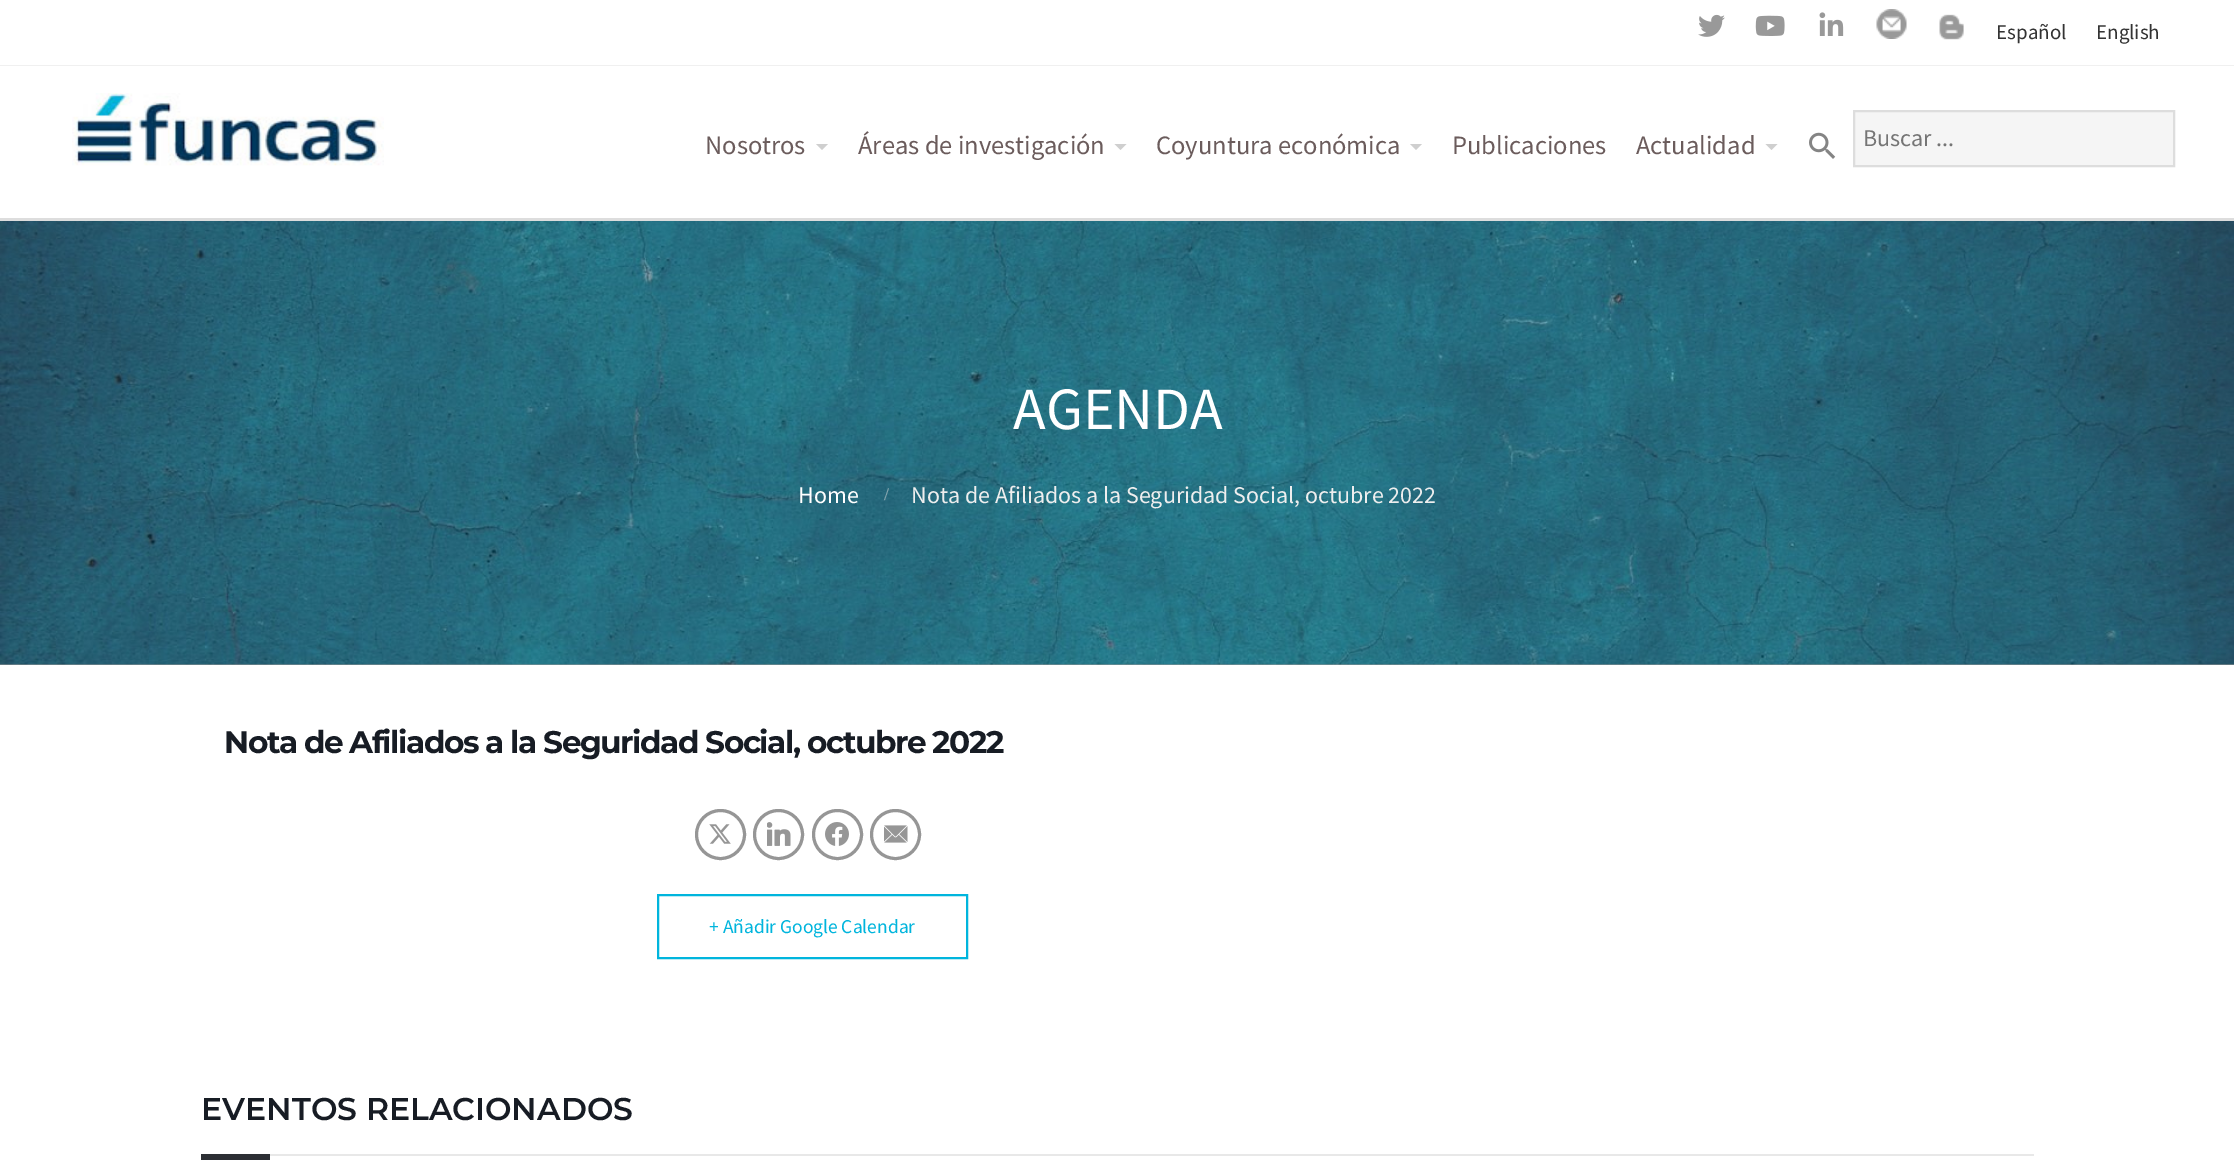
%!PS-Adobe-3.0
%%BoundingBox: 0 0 2234 1166
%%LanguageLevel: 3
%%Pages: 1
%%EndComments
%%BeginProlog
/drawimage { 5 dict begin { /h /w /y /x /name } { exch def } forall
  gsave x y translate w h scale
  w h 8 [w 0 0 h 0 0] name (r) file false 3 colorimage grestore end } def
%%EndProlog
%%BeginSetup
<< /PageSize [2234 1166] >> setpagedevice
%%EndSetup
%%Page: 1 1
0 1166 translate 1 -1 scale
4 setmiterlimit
1 setgray
0 0 2234 1166 rectfill
0.6 setgray
0 664 2234 1 rectfill
0.941 setgray
0 65 2234 1 rectfill
(images/1.raw) 1698 14 27 23 drawimage
(images/2.raw) 1755 15 30 21 drawimage
(images/3.raw) 1819 12 25 24 drawimage
(images/4.raw) 1876 9 31 30 drawimage
(images/5.raw) 1939 14 25 26 drawimage
0.867 setgray
0 218 2234 3 rectfill
(images/6.raw) 72 93 312 73 drawimage
0.812 setgray
newpath 816 144 moveto 828 144 lineto 822 150 lineto closepath fill
newpath 1114.5 144 moveto 1126.5 144 lineto 1120.5 150 lineto closepath fill
newpath 1410 144 moveto 1422 144 lineto 1416 150 lineto closepath fill
newpath 1765.5 144 moveto 1777.5 144 lineto 1771.5 150 lineto closepath fill
(images/7.raw) 1809 132 27 27 drawimage
0.961 setgray
newpath 1854 111 moveto 2174 111 lineto 2174 166 lineto 1854 166 lineto closepath gsave fill grestore
0.867 setgray
2 setlinewidth
stroke
(images/8.raw) 0 221 2234 444 drawimage
0.588 setgray
3 setlinewidth
newpath 720.5 834.5 24 0 360 arc closepath stroke
(images/9.raw) 709 824 22 20 drawimage
newpath 778.5 834.5 24 0 360 arc closepath stroke
(images/10.raw) 767 822 24 24 drawimage
newpath 837.5 834.5 24 0 360 arc closepath stroke
(images/11.raw) 825 822 24 24 drawimage
newpath 895.5 834.5 24 0 360 arc closepath stroke
(images/12.raw) 884 825 24 18 drawimage
0 0.71 0.867 setrgbcolor
2 setlinewidth
658 895 309 63 rectstroke
0.91 setgray
270 1154 1764 2 rectfill
0.173 0.184 0.204 setrgbcolor
201 1154 69 6 rectfill
/SourceSansPro-Regular [21 0 0 -21 0 0] selectfont
0.2 setgray
1996 39 moveto (Español) show
2096 39 moveto (English) show
/SourceSansPro-Regular [26.5 0 0 -26.5 0 0] selectfont
0.42 0.361 0.361 setrgbcolor
705 154 moveto (Nosotros) show
858 154 moveto (Áreas de investigación) show
1156 154 moveto (Coyuntura económica) show
1452 154 moveto (Publicaciones) show
1636 154 moveto (Actualidad) show
/SourceSansPro-Regular [24 0 0 -24 0 0] selectfont
0.459 setgray
1863 146 moveto (Buscar ...) show
/SourceSansPro-Regular [60 0 0 -60 0 0] selectfont
1 setgray
1013 429 moveto (AGENDA) show
/SourceSansPro-Regular [24 0 0 -24 0 0] selectfont
798 503 moveto (Home) show
/LiberationSerif-Bold [18 0 0 -18 0 0] selectfont
0.506 0.635 0.675 setrgbcolor
884 500 moveto (/) show
/SourceSansPro-Regular [24 0 0 -24 0 0] selectfont
0.933 setgray
911 503 moveto (Nota de Afiliados a la Seguridad Social, octubre 2022) show
/Montserrat-Bold [31.2 0 0 -31.2 0 0] selectfont
0.09 0.11 0.141 setrgbcolor
224 753 moveto -1.5 0 (Nota de Afiliados a la Seguridad Social, octubre 2022) ashow
/SourceSansPro-Regular [19.5 0 0 -19.5 0 0] selectfont
0 0.71 0.867 setrgbcolor
709 933 moveto (+ Añadir Google Calendar) show
/Montserrat-SemiBold [31.5 0 0 -31.5 0 0] selectfont
0.09 0.11 0.141 setrgbcolor
201 1120 moveto (EVENTOS RELACIONADOS) show
showpage
%%EOF
